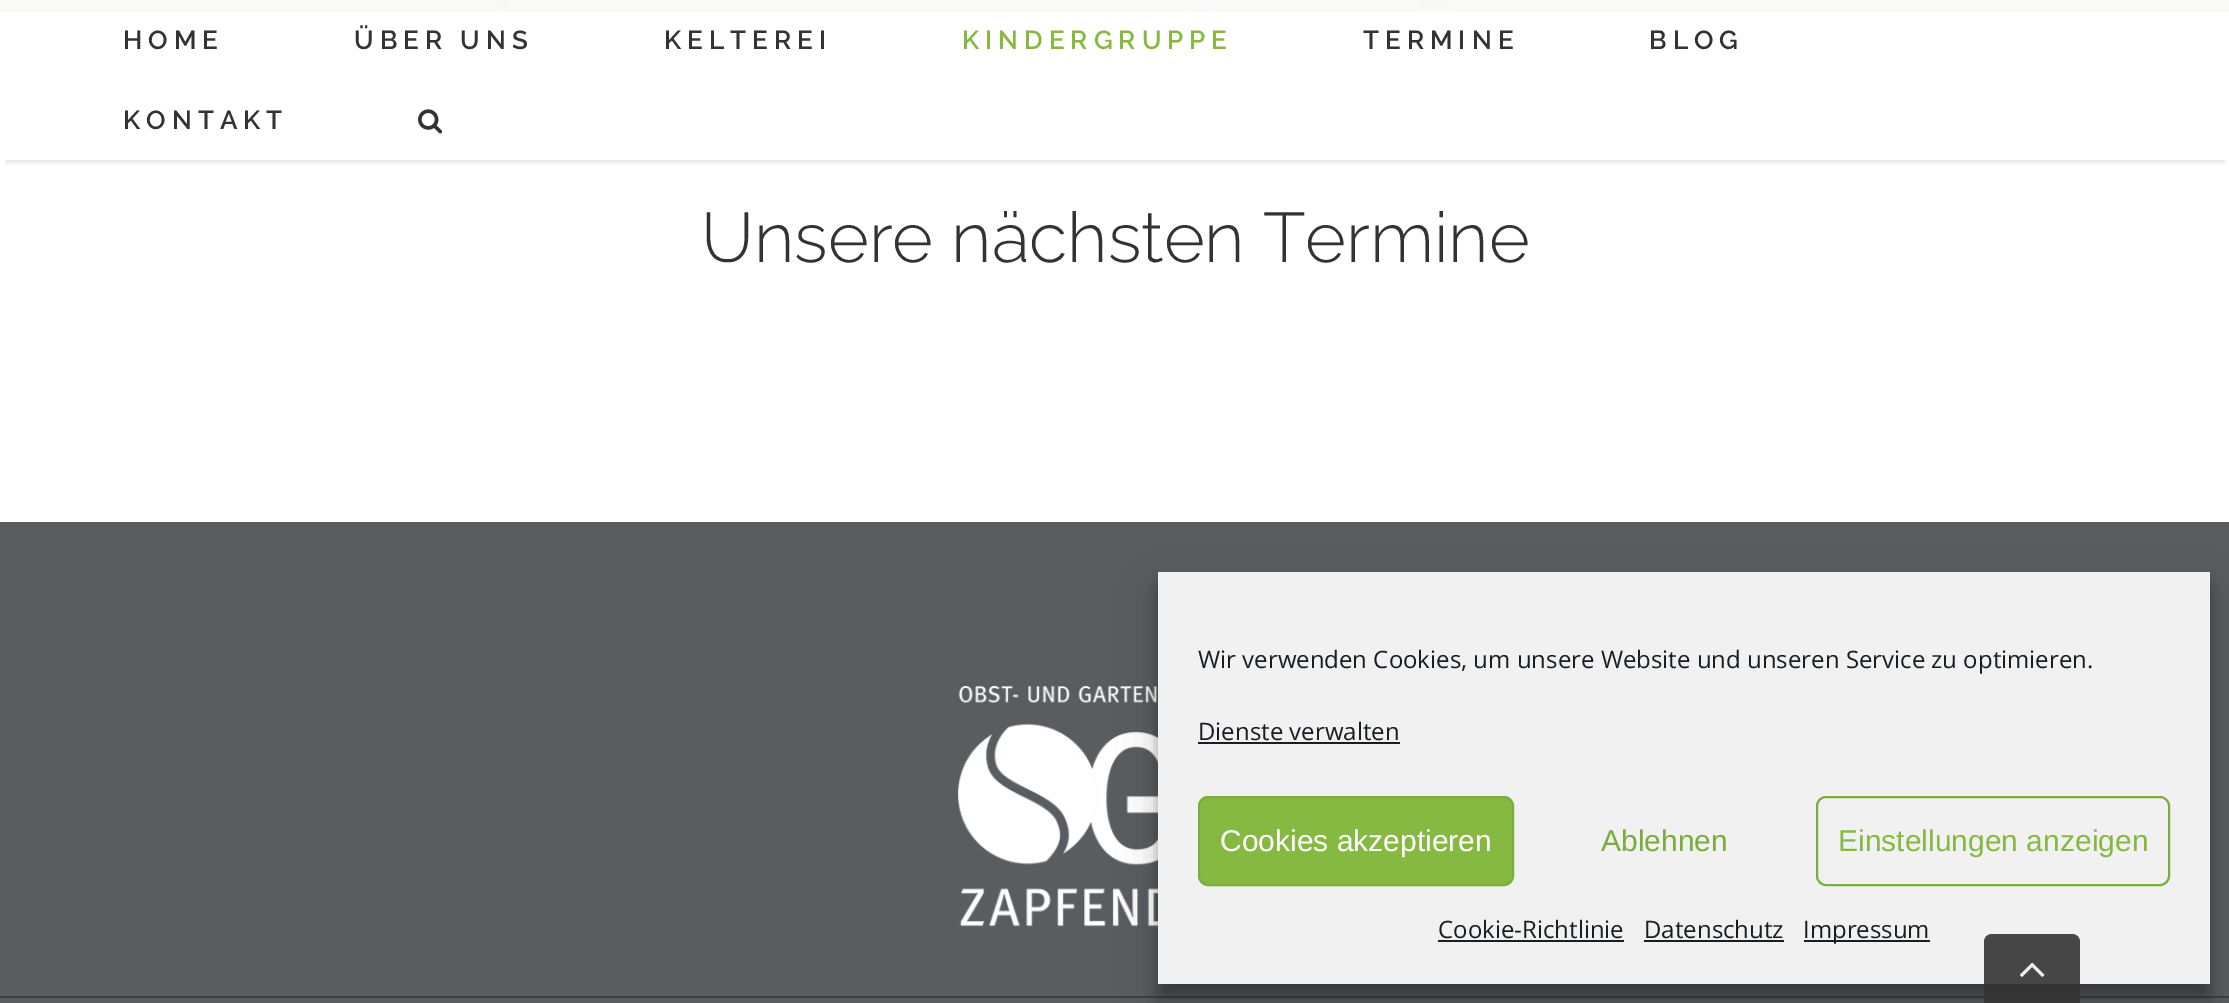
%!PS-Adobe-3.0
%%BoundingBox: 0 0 2229 1003
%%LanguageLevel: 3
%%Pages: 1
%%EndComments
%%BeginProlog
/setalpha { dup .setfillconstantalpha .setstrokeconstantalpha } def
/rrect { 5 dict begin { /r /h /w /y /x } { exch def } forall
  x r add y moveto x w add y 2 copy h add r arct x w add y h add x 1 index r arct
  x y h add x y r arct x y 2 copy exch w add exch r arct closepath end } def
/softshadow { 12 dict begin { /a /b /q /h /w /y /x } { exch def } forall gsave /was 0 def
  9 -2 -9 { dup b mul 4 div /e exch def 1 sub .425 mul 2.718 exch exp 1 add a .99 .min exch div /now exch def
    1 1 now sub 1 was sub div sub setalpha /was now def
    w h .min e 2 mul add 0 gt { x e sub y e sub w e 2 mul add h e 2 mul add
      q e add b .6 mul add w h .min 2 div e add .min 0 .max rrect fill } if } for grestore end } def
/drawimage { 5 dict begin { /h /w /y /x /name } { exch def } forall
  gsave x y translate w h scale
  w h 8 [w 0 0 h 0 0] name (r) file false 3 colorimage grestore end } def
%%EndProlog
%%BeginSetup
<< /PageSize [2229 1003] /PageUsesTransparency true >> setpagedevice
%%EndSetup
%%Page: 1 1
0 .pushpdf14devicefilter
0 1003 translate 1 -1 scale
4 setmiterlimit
1 setgray
0 0 2229 1003 rectfill
(images/1.raw) 0 0 2229 12 drawimage
gsave
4 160 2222 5 rectclip
0 setgray
6 14 2218 148 0 3 0.12 softshadow
grestore
0.97 setalpha
0 0 2229 12 rectfill
1 setalpha
(images/2.raw) 418 109 25 25 drawimage
0.349 0.365 0.376 setrgbcolor
0 522 2229 474 rectfill
(images/3.raw) 958 686 200 241 drawimage
0 998 2229 5 rectfill
0.251 0.251 0.259 setrgbcolor
0 996 2229 2 rectfill
0 setgray
1158 584 1052 412 0 6 0.23 softshadow
1158 592 1052 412 0 20 0.19 softshadow
0.945 setgray
1158 572 1052 412 rectfill
0.098 0.118 0.137 setrgbcolor
1198 742 202 2 rectfill
0.525 0.725 0.259 setrgbcolor
1199 797 314 88 9 rrect gsave fill grestore
0.482 0.678 0.243 setrgbcolor
2 setlinewidth
stroke
1817 797 352 88 9 rrect stroke
0.098 0.118 0.137 setrgbcolor
1438 940 186 2 rectfill
1644 940 140 2 rectfill
1804 940 126 2 rectfill
0.9 setalpha
0.2 setgray
newpath 1992 934 moveto 2072 934 lineto 2076.5 934 2080 937.5 2080 942 curveto 2080 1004 lineto 1984 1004 lineto 1984 942 lineto 1984 937.5 1987.5 934 1992 934 curveto closepath fill
1 setalpha
(images/4.raw) 2020 962 25 15 drawimage
/Raleway-SemiBold [26 0 0 -26 0 0] selectfont
123 49 moveto 6 0 (HOME) ashow
354 49 moveto 6 0 (ÜBER UNS) ashow
664 49 moveto 6 0 (KELTEREI) ashow
0.525 0.725 0.259 setrgbcolor
962 49 moveto 6 0 (KINDERGRUPPE) ashow
0.2 setgray
1363 49 moveto 6 0 (TERMINE) ashow
1649 49 moveto 6 0 (BLOG) ashow
123 129 moveto 6 0 (KONTAKT) ashow
/Raleway-Light [70 0 0 -70 0 0] selectfont
701 262 moveto (Unsere nächsten Termine) show
/OpenSans-Regular [24 0 0 -24 0 0] selectfont
0.098 0.118 0.137 setrgbcolor
1198 668 moveto (Wir verwenden Cookies, um unsere Website und unseren Service zu optimieren.) show
1198 740 moveto (Dienste verwalten) show
/LiberationSans-Regular [30 0 0 -30 0 0] selectfont
1 setgray
1220 851 moveto (Cookies akzeptieren) show
0.482 0.678 0.243 setrgbcolor
1601 851 moveto (Ablehnen) show
0.525 0.725 0.259 setrgbcolor
1838 851 moveto (Einstellungen anzeigen) show
/OpenSans-Regular [24 0 0 -24 0 0] selectfont
0.098 0.118 0.137 setrgbcolor
1438 938 moveto (Cookie-Richtlinie) show
1644 938 moveto (Datenschutz) show
1803 938 moveto (Impressum) show
.poppdf14devicefilter showpage
%%EOF
